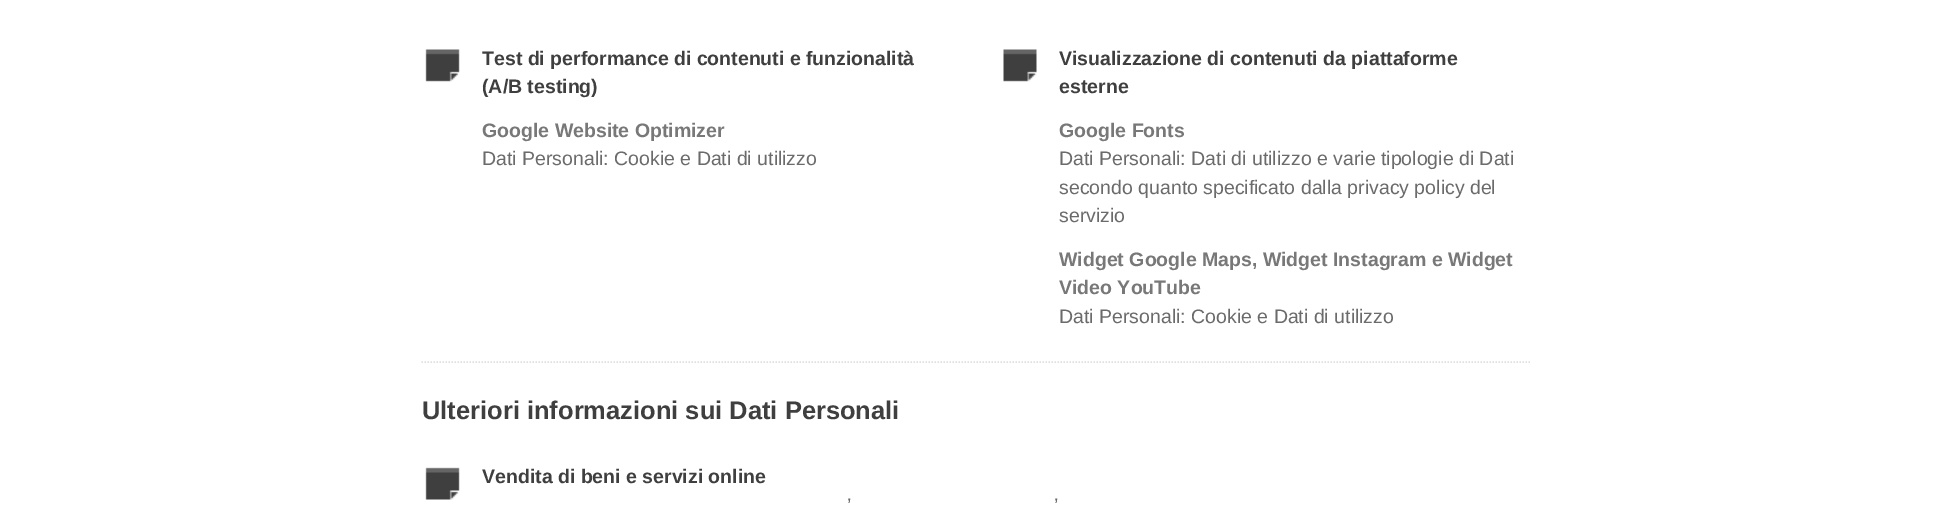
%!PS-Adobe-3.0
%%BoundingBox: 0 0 1952 507
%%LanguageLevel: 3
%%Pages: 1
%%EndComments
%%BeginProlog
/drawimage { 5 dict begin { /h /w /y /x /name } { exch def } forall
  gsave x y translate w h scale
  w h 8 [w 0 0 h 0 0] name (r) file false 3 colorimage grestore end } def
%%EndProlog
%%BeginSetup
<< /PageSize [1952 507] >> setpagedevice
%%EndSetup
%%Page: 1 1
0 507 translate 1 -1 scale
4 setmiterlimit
1 setgray
0 0 1952 507 rectfill
0.875 setgray
1.5 setlinewidth
[1.5 1.5] 0 setdash
newpath 421.5 362 moveto 1531.5 362 lineto stroke
(images/1.raw) 425 49 35 33 drawimage
(images/2.raw) 1003 49 34 33 drawimage
(images/3.raw) 425 467 35 33 drawimage
/LiberationSans-Bold [19.5 0 0 -19.5 0 0] selectfont
0.247 setgray
482 65 moveto (Test di performance di contenuti e funzionalità) show
482 93 moveto (\(A/B testing\)) show
0.471 setgray
482 137 moveto (Google Website Optimizer) show
/LiberationSans-Regular [19.5 0 0 -19.5 0 0] selectfont
0.42 setgray
482 165 moveto (Dati Personali: Cookie e Dati di utilizzo) show
/LiberationSans-Bold [19.5 0 0 -19.5 0 0] selectfont
0.247 setgray
1059 65 moveto (Visualizzazione di contenuti da piattaforme) show
1059 93 moveto (esterne) show
0.471 setgray
1059 137 moveto (Google Fonts) show
/LiberationSans-Regular [19.5 0 0 -19.5 0 0] selectfont
0.42 setgray
1059 165 moveto (Dati Personali: Dati di utilizzo e varie tipologie di Dati) show
1059 194 moveto (secondo quanto specificato dalla privacy policy del) show
1059 222 moveto (servizio) show
/LiberationSans-Bold [19.5 0 0 -19.5 0 0] selectfont
0.471 setgray
1059 266 moveto (Widget Google Maps, Widget Instagram e Widget) show
1059 294 moveto (Video YouTube) show
/LiberationSans-Regular [19.5 0 0 -19.5 0 0] selectfont
0.42 setgray
1059 323 moveto (Dati Personali: Cookie e Dati di utilizzo) show
/LiberationSans-Bold [25.5 0 0 -25.5 0 0] selectfont
0.247 setgray
422 419 moveto (Ulteriori informazioni sui Dati Personali) show
/LiberationSans-Bold [19.5 0 0 -19.5 0 0] selectfont
482 483 moveto (Vendita di beni e servizi online) show
/LiberationSans-Regular [19.5 0 0 -19.5 0 0] selectfont
0.42 setgray
847 512 moveto (’) show
1054 512 moveto (’) show
showpage
%%EOF
